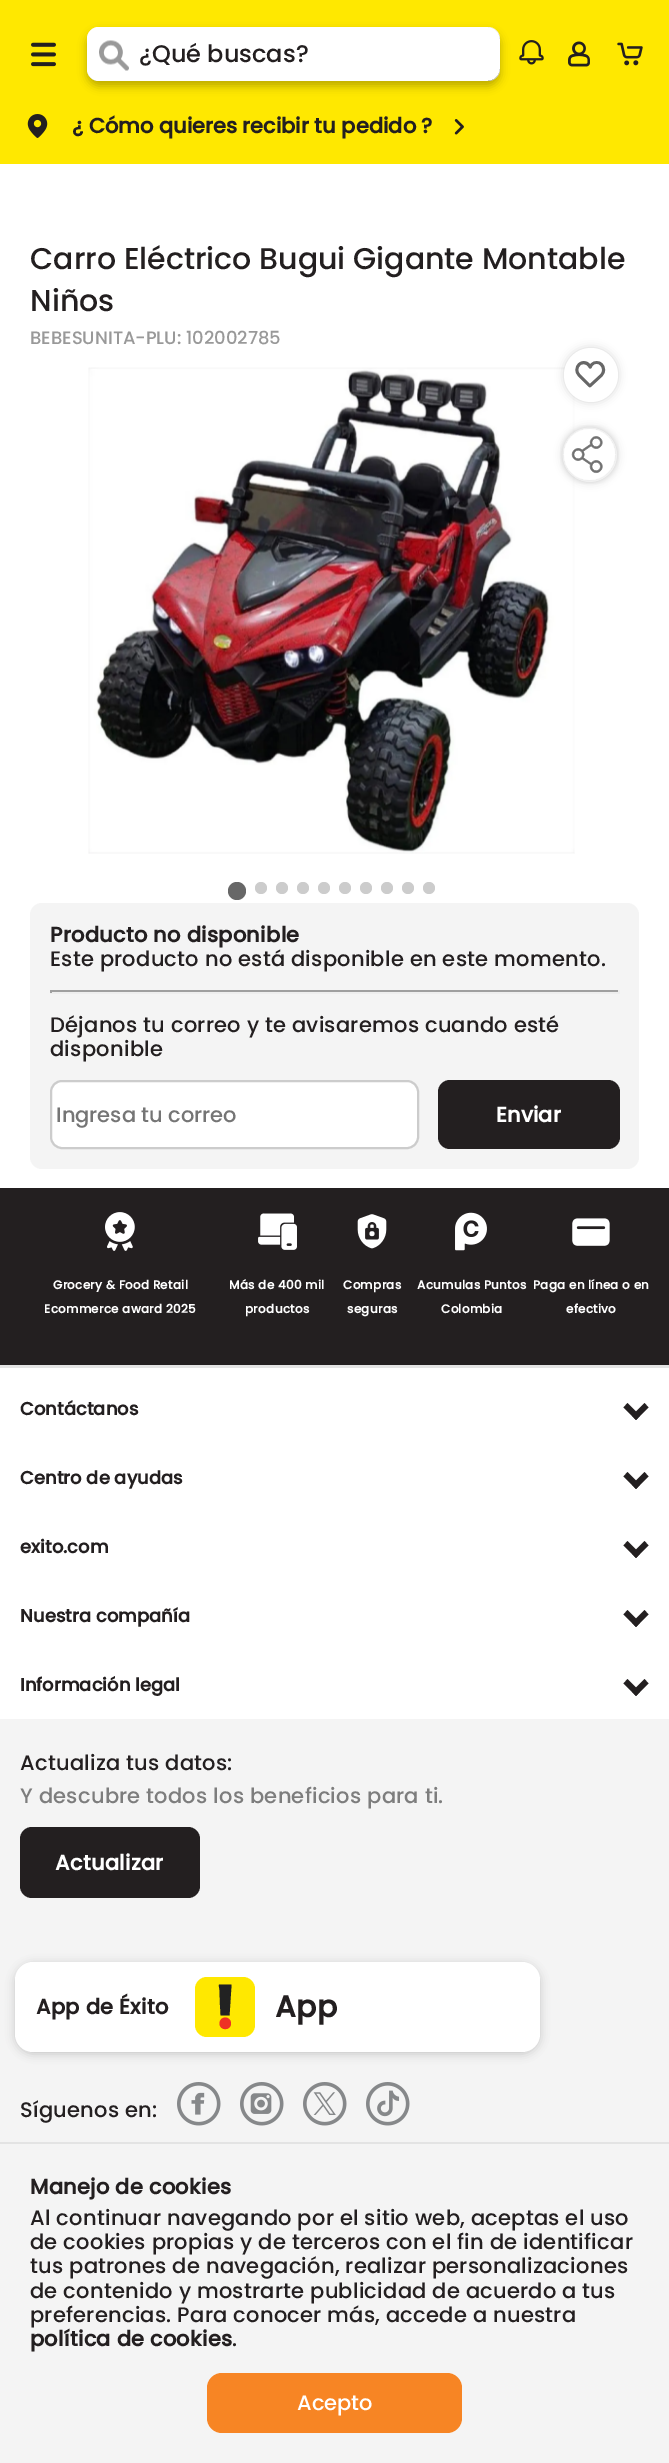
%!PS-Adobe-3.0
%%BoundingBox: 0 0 669 2463
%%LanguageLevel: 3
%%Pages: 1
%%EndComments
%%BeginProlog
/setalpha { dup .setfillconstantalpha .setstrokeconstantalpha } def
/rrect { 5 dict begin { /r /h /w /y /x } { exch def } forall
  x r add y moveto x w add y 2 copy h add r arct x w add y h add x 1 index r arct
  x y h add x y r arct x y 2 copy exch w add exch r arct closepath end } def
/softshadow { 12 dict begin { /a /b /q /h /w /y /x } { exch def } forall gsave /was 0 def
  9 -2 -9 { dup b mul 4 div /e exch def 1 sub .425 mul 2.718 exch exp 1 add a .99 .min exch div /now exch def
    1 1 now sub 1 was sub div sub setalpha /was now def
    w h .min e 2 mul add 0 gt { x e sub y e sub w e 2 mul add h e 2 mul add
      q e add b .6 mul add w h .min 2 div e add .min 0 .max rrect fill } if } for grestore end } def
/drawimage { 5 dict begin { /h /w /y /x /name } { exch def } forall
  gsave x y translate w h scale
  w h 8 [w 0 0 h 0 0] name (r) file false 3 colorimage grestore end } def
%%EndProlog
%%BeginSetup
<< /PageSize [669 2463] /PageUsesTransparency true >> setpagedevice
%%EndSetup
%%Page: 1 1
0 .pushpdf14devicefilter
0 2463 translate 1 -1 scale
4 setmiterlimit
1 setgray
0 0 669 2463 rectfill
1 0.91 0 setrgbcolor
0 0 669 164 rectfill
(images/1.raw) 31 42 25 25 drawimage
1 setgray
87 27 413 54 12 rrect fill
gsave
newpath 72 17 moveto 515 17 lineto 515 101 lineto 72 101 lineto closepath 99 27 moveto 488 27 lineto 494.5 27 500 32.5 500 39 curveto 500 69 lineto 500 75.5 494.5 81 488 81 curveto 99 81 lineto 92.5 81 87 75.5 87 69 curveto 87 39 lineto 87 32.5 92.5 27 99 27 curveto closepath eoclip newpath
0 setgray
87 32 413 54 12 4.5 0.26 softshadow
grestore
newpath 99 27 moveto 140 27 lineto 140 81 lineto 99 81 lineto 92.5 81 87 75.5 87 69 curveto 87 39 lineto 87 32.5 92.5 27 99 27 curveto closepath fill
(images/2.raw) 99 40 30 31 drawimage
(images/3.raw) 519 40 25 25 drawimage
(images/4.raw) 568 41 22 26 drawimage
(images/5.raw) 617 42 26 24 drawimage
(images/6.raw) 27 114 21 24 drawimage
(images/7.raw) 454 119 10 16 drawimage
(images/8.raw) 88 367 487 487 drawimage
0.404 setgray
newpath 237 891 9 0 360 arc closepath fill
0.8 setgray
newpath 261 888 6 0 360 arc closepath fill
newpath 282 888 6 0 360 arc closepath fill
newpath 303 888 6 0 360 arc closepath fill
newpath 324 888 6 0 360 arc closepath fill
newpath 345 888 6 0 360 arc closepath fill
newpath 366 888 6 0 360 arc closepath fill
newpath 387 888 6 0 360 arc closepath fill
newpath 408 888 6 0 360 arc closepath fill
newpath 429 888 6 0 360 arc closepath fill
0 setgray
564 348 54 54 27 4.5 0.16 softshadow
1 setgray
newpath 591 375 27 0 360 arc closepath fill
(images/9.raw) 575 361 31 27 drawimage
0 setgray
563 428 54 54 27 4.5 0.16 softshadow
1 setgray
newpath 590 455 27 0 360 arc closepath fill
(images/10.raw) 560 425 59 59 drawimage
0.957 setgray
30 903 609 266 12 rrect fill
0.624 setgray
50 990 570 2 rectfill
0.933 setgray
618 990 2 3 rectfill
50 992 570 2 rectfill
0.624 setgray
50 990 2 3 rectfill
1 setgray
51 1081 367 67 11 rrect gsave fill grestore
0.8 setgray
2 setlinewidth
stroke
0.137 0.122 0.125 setrgbcolor
438 1080 182 69 12 rrect fill
0 1188 669 177 rectfill
(images/11.raw) 105 1212 30 39 drawimage
(images/12.raw) 258 1213 39 37 drawimage
(images/13.raw) 357 1214 30 35 drawimage
(images/14.raw) 455 1212 32 39 drawimage
(images/15.raw) 572 1218 38 28 drawimage
0.89 setgray
0 1365 669 3 rectfill
0.137 0.122 0.125 setrgbcolor
newpath 636 1420 moveto 623.5 1407.5 lineto 627.5 1403 lineto 640 1415.5 lineto closepath fill
newpath 636 1420 moveto 632 1415.5 lineto 644.5 1403 lineto 648.5 1407.5 lineto closepath fill
newpath 636 1489 moveto 623.5 1476.5 lineto 627.5 1472 lineto 640 1484.5 lineto closepath fill
newpath 636 1489 moveto 632 1484.5 lineto 644.5 1472 lineto 648.5 1476.5 lineto closepath fill
newpath 636 1558 moveto 623.5 1545.5 lineto 627.5 1541 lineto 640 1553.5 lineto closepath fill
newpath 636 1558 moveto 632 1553.5 lineto 644.5 1541 lineto 648.5 1545.5 lineto closepath fill
newpath 636 1627 moveto 623.5 1614.5 lineto 627.5 1610 lineto 640 1622.5 lineto closepath fill
newpath 636 1627 moveto 632 1622.5 lineto 644.5 1610 lineto 648.5 1614.5 lineto closepath fill
newpath 636 1696 moveto 623.5 1683.5 lineto 627.5 1679 lineto 640 1691.5 lineto closepath fill
newpath 636 1696 moveto 632 1691.5 lineto 644.5 1679 lineto 648.5 1683.5 lineto closepath fill
0.957 setgray
0 1719 669 423 rectfill
0.137 0.122 0.125 setrgbcolor
20 1827 180 71 12 rrect fill
0.18 setgray
15 1964 525 90 18 4.5 0.22 softshadow
1 setgray
15 1962 525 90 18 rrect fill
1 0.91 0 setrgbcolor
195 1977 60 60 12 rrect fill
0.933 0.192 0.141 setrgbcolor
newpath 231 2023.5 moveto 231 2015.5 219.5 2015.5 219.5 2023.5 curveto 219.5 2031 231 2031 231 2023.5 curveto fill
0.133 setgray
newpath 221 2015.5 moveto 220 2015.5 220.5 2008 220 2005 curveto 219.5 1990 lineto 219 1984.5 217.5 1984.5 221.5 1984.5 curveto 231 1984.5 lineto 231.5 1984.5 lineto 229.5 2015.5 lineto closepath fill
(images/16.raw) 177 2082 44 44 drawimage
(images/17.raw) 240 2082 44 44 drawimage
(images/18.raw) 303 2082 44 44 drawimage
(images/19.raw) 366 2082 44 44 drawimage
0.957 setgray
0 2144 669 319 rectfill
0.89 setgray
0 2142 669 2 rectfill
0.969 0.522 0.141 setrgbcolor
207 2373 255 60 15 rrect fill
/Poppins-Medium [24 0 0 -24 0 0] selectfont
0.137 0.122 0.125 setrgbcolor
139 62 moveto (¿Qué buscas?) show
/Poppins-Bold [21 0 0 -21 0 0] selectfont
72 133 moveto (¿ Cómo quieres) show
242 133 moveto (recibir tu pedido ?) show
/Poppins-Medium [30 0 0 -30 0 0] selectfont
30 269 moveto (Carro Eléctrico Bugui Gigante Montable) show
30 311 moveto (Niños) show
/Poppins-Medium [18 0 0 -18 0 0] selectfont
0.6 setgray
30 344 moveto (BEBESUNITA-PLU: 102002785) show
/Poppins-Bold [21 0 0 -21 0 0] selectfont
0.137 0.122 0.125 setrgbcolor
50 942 moveto 0.25 0 (Producto no disponible) ashow
/Poppins-Medium [21 0 0 -21 0 0] selectfont
50 966 moveto 0.25 0 (Este producto no está disponible en este momento.) ashow
50 1032 moveto 0.25 0 (Déjanos tu correo y te avisaremos cuando esté) ashow
50 1056 moveto 0.25 0 (disponible) ashow
0.459 setgray
56 1122 moveto (Ingresa tu correo) show
/Poppins-Bold [21 0 0 -21 0 0] selectfont
1 setgray
496 1122 moveto (Enviar) show
/Poppins-Bold [12 0 0 -12 0 0] selectfont
53 1289 moveto 0.25 0 (Grocery & Food Retail) ashow
44 1313 moveto 0.25 0 (Ecommerce award 2025) ashow
229 1289 moveto 0.25 0 (Más de 400 mil) ashow
245 1313 moveto 0.25 0 (productos) ashow
343 1289 moveto 0.25 0 (Compras) ashow
347 1313 moveto 0.25 0 (seguras) ashow
417 1289 moveto 0.25 0 (Acumulas Puntos) ashow
441 1313 moveto 0.25 0 (Colombia) ashow
533 1289 moveto 0.25 0 (Paga en línea o en) ashow
566 1313 moveto 0.25 0 (efectivo) ashow
/Poppins-Bold [18 0 0 -18 0 0] selectfont
0.137 0.122 0.125 setrgbcolor
20 1415 moveto (Contáctanos) show
20 1484 moveto (Centro de ayudas) show
20 1553 moveto (exito.com) show
20 1622 moveto (Nuestra compañía) show
20 1691 moveto (Información legal) show
/Poppins-Medium [21 0 0 -21 0 0] selectfont
20 1770 moveto 0.25 0 (Actualiza tus datos:) ashow
0.49 setgray
20 1803 moveto 0.25 0 (Y descubre todos los beneficios para ti.) ashow
/Poppins-Bold [21 0 0 -21 0 0] selectfont
1 setgray
55 1870 moveto 0.25 0 (Actualizar) ashow
0.137 0.122 0.125 setrgbcolor
36 2014 moveto 0.25 0 (App de Éxito) ashow
/Poppins-Bold [30 0 0 -30 0 0] selectfont
275 2017 moveto 0.25 0 (App) ashow
/Poppins-Medium [21 0 0 -21 0 0] selectfont
20 2117 moveto 0.25 0 (Síguenos en:) ashow
/Poppins-Bold [21 0 0 -21 0 0] selectfont
30 2194 moveto 0.25 0 (Manejo de cookies) ashow
/Poppins-Medium [21 0 0 -21 0 0] selectfont
30 2225 moveto 0.25 0 (Al continuar navegando por el sitio web, aceptas el uso) ashow
30 2249 moveto 0.25 0 (de cookies propias y de terceros con el fin de identificar) ashow
30 2273 moveto 0.25 0 (tus patrones de navegación, realizar personalizaciones) ashow
30 2298 moveto 0.25 0 (de contenido y mostrarte publicidad de acuerdo a tus) ashow
30 2322 moveto 0.25 0 (preferencias. Para conocer más, accede a nuestra) ashow
/Poppins-Bold [21 0 0 -21 0 0] selectfont
30 2346 moveto 0.25 0 (política de cookies) ashow
/Poppins-Medium [21 0 0 -21 0 0] selectfont
232 2346 moveto 0.25 0 (.) ashow
1 setgray
297 2410 moveto (Acepto) show
.poppdf14devicefilter showpage
%%EOF
